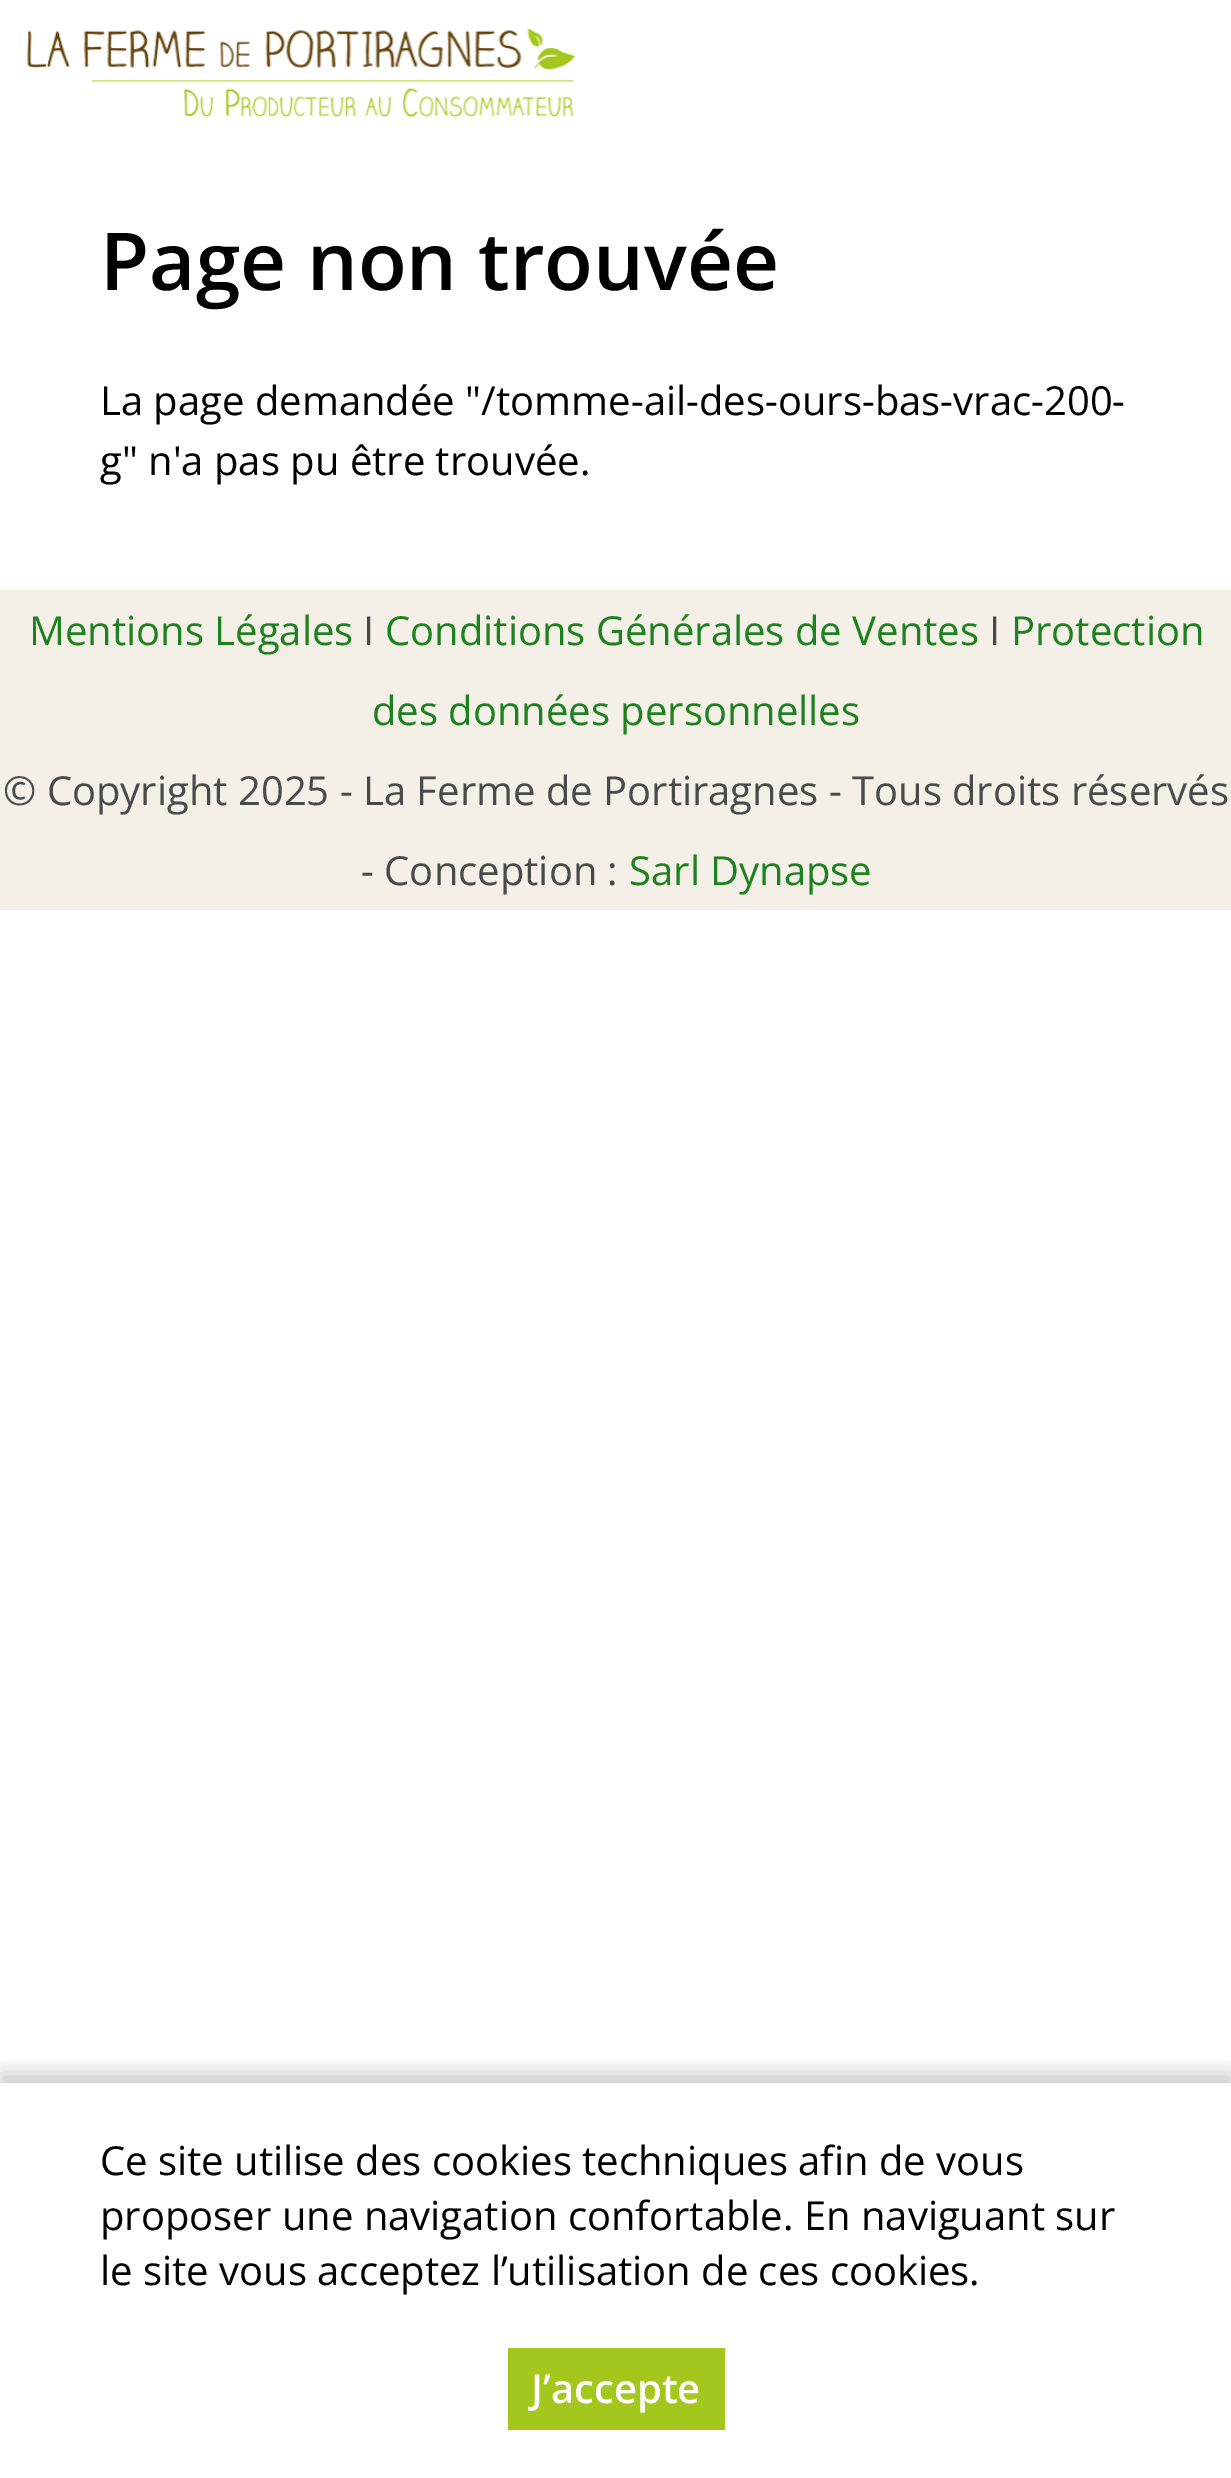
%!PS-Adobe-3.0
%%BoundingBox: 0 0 1231 2478
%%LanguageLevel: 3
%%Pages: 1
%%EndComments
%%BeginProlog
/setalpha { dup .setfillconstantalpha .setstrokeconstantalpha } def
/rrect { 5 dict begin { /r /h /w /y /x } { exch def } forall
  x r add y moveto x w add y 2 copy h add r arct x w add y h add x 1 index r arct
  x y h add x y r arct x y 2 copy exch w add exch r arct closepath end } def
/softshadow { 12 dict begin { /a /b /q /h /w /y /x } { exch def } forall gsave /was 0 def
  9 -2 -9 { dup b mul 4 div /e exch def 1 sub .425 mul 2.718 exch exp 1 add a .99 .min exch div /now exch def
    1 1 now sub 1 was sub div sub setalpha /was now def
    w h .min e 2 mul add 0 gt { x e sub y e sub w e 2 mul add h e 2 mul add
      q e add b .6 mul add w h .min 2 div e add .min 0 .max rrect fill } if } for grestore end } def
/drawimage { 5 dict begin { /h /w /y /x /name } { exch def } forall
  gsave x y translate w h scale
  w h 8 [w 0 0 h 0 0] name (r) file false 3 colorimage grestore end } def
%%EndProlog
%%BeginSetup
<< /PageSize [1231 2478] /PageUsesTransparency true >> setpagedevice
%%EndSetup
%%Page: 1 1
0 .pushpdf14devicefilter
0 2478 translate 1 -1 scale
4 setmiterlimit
1 setgray
0 0 1231 2478 rectfill
(images/1.raw) 27 28 548 90 drawimage
0.957 0.941 0.906 setrgbcolor
0 590 1231 320 rectfill
gsave
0 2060 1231 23 rectclip
0 setgray
0 2073 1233 397 0 10 0.2 softshadow
grestore
0.643 0.78 0.114 setrgbcolor
508 2348 217 82 rectfill
/OpenSans-SemiBold [80 0 0 -80 0 0] selectfont
0 setgray
100 290 moveto (Page non trouvée) show
/OpenSans-Regular [40 0 0 -40 0 0] selectfont
100 415 moveto (La page demandée "/tomme-ail-des-ours-bas-vrac-200-) show
100 475 moveto (g" n'a pas pu être trouvée.) show
0.11 0.506 0.118 setrgbcolor
29 645 moveto (Mentions Légales) show
0.29 setgray
363 645 moveto (I) show
0.11 0.506 0.118 setrgbcolor
385 645 moveto (Conditions Générales de Ventes) show
0.29 setgray
989 645 moveto (I) show
0.11 0.506 0.118 setrgbcolor
1011 645 moveto (Protection) show
372 725 moveto (des données personnelles) show
0.29 setgray
3 805 moveto (© Copyright 2025 - La Ferme de Portiragnes - Tous droits réservés) show
361 885 moveto (- Conception :) show
0.11 0.506 0.118 setrgbcolor
629 885 moveto (Sarl Dynapse) show
0 setgray
100 2175 moveto (Ce site utilise des cookies techniques afin de vous) show
100 2230 moveto (proposer une navigation confortable. En naviguant sur) show
100 2285 moveto (le site vous acceptez l’utilisation de ces cookies.) show
/OpenSans-SemiBold [40 0 0 -40 0 0] selectfont
1 setgray
531 2403 moveto (J’accepte) show
.poppdf14devicefilter showpage
%%EOF
